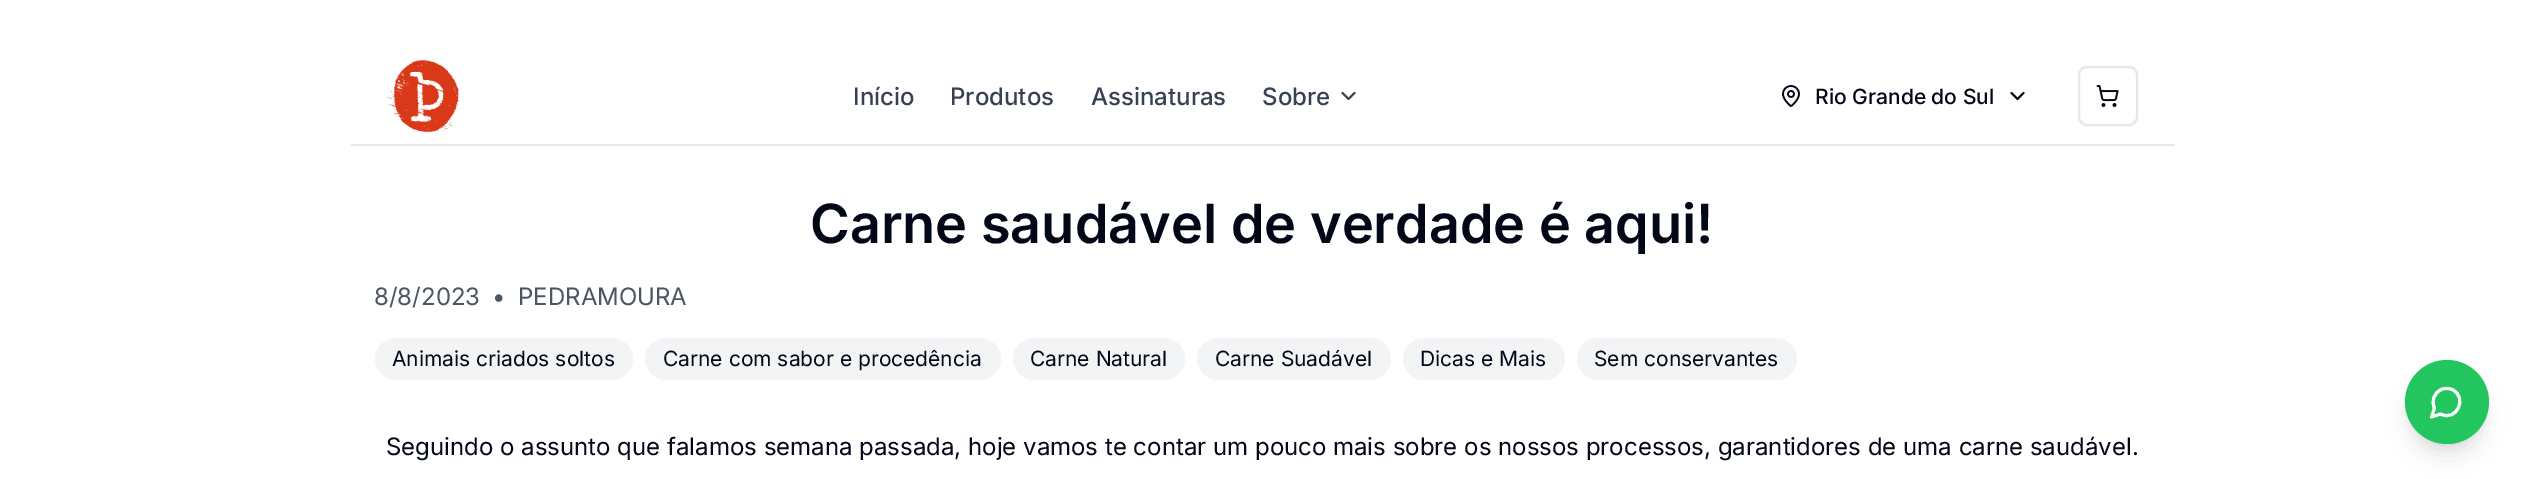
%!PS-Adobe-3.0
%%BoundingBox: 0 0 2524 479
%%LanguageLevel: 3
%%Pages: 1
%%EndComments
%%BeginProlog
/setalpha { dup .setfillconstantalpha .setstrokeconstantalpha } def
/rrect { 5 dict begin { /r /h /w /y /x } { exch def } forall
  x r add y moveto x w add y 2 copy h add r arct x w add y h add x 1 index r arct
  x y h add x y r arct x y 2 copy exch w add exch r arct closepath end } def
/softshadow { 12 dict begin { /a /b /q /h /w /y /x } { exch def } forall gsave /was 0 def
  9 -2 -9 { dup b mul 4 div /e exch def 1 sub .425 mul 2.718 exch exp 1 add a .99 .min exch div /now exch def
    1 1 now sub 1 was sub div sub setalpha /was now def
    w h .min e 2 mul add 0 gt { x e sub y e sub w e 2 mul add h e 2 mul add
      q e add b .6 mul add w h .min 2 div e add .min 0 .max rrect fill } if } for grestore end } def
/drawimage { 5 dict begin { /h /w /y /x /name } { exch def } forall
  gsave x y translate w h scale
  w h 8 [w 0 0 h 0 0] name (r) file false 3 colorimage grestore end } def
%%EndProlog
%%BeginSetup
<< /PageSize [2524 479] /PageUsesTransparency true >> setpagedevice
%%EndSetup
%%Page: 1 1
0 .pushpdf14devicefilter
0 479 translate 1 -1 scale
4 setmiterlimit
1 setgray
0 0 2524 479 rectfill
0.886 0.91 0.941 setrgbcolor
351 144 1824 2 rectfill
(images/1.raw) 387 60 72 72 drawimage
0.216 0.255 0.318 setrgbcolor
2 setlinewidth
1 setlinecap
1 setlinejoin
newpath 1342.5 93 moveto 1348.5 99 lineto 1354.5 93 lineto stroke
(images/2.raw) 1782 85 18 22 drawimage
0.008 0.031 0.09 setrgbcolor
newpath 2011.5 93 moveto 2017.5 99 lineto 2023.5 93 lineto stroke
0.886 0.91 0.941 setrgbcolor
0 setlinecap
0 setlinejoin
2079 67 58 58 8 rrect stroke
(images/3.raw) 2096 85 23 22 drawimage
0.953 0.957 0.965 setrgbcolor
375 338 258 42 21 rrect fill
645 338 356 42 21 rrect fill
1013 338 172 42 21 rrect fill
1197 338 194 42 21 rrect fill
1403 338 162 42 21 rrect fill
1577 338 220 42 21 rrect fill
0 setgray
2411 372 72 72 36 4.5 0.1 softshadow
2409 380 75 75 37.5 11 0.1 softshadow
0.133 0.773 0.369 setrgbcolor
newpath 2447 402 42 0 360 arc closepath fill
1 setgray
3 setlinewidth
1 setlinecap
1 setlinejoin
newpath 2440.5 414 moveto 2456.5 422.5 2468.5 397 2452 389.5 curveto 2448.5 388 2444 388 2440.5 390 curveto 2434 393 2431 401.5 2434.5 408 curveto 2431.5 417 lineto closepath stroke
/Inter-Medium [24 0 0 -24 0 0] selectfont
0.216 0.255 0.318 setrgbcolor
853 105 moveto (Início) show
950 105 moveto (Produtos) show
1091 105 moveto (Assinaturas) show
1262 105 moveto (Sobre) show
/Inter-Medium [21 0 0 -21 0 0] selectfont
0.008 0.031 0.09 setrgbcolor
1815 104 moveto (Rio Grande do Sul) show
/Inter-SemiBold [54 0 0 -54 0 0] selectfont
810 243 moveto (Carne saudável de verdade é aqui!) show
/Inter-Regular [24 0 0 -24 0 0] selectfont
0.294 0.333 0.388 setrgbcolor
374 305 moveto (8/8/2023) show
492 305 moveto (•) show
518 305 moveto (PEDRAMOURA) show
/Inter-Regular [21 0 0 -21 0 0] selectfont
0.008 0.031 0.09 setrgbcolor
392 366 moveto (Animais criados soltos) show
663 366 moveto (Carne com sabor e procedência) show
1030 366 moveto (Carne Natural) show
1215 366 moveto (Carne Suadável) show
1420 366 moveto (Dicas e Mais) show
1594 366 moveto (Sem conservantes) show
/Inter-Regular [24 0 0 -24 0 0] selectfont
386 455 moveto (Seguindo o assunto que falamos semana passada, hoje vamos te contar um pouco mais sobre os nossos processos, garantidores de uma carne saudável.) show
.poppdf14devicefilter showpage
%%EOF
